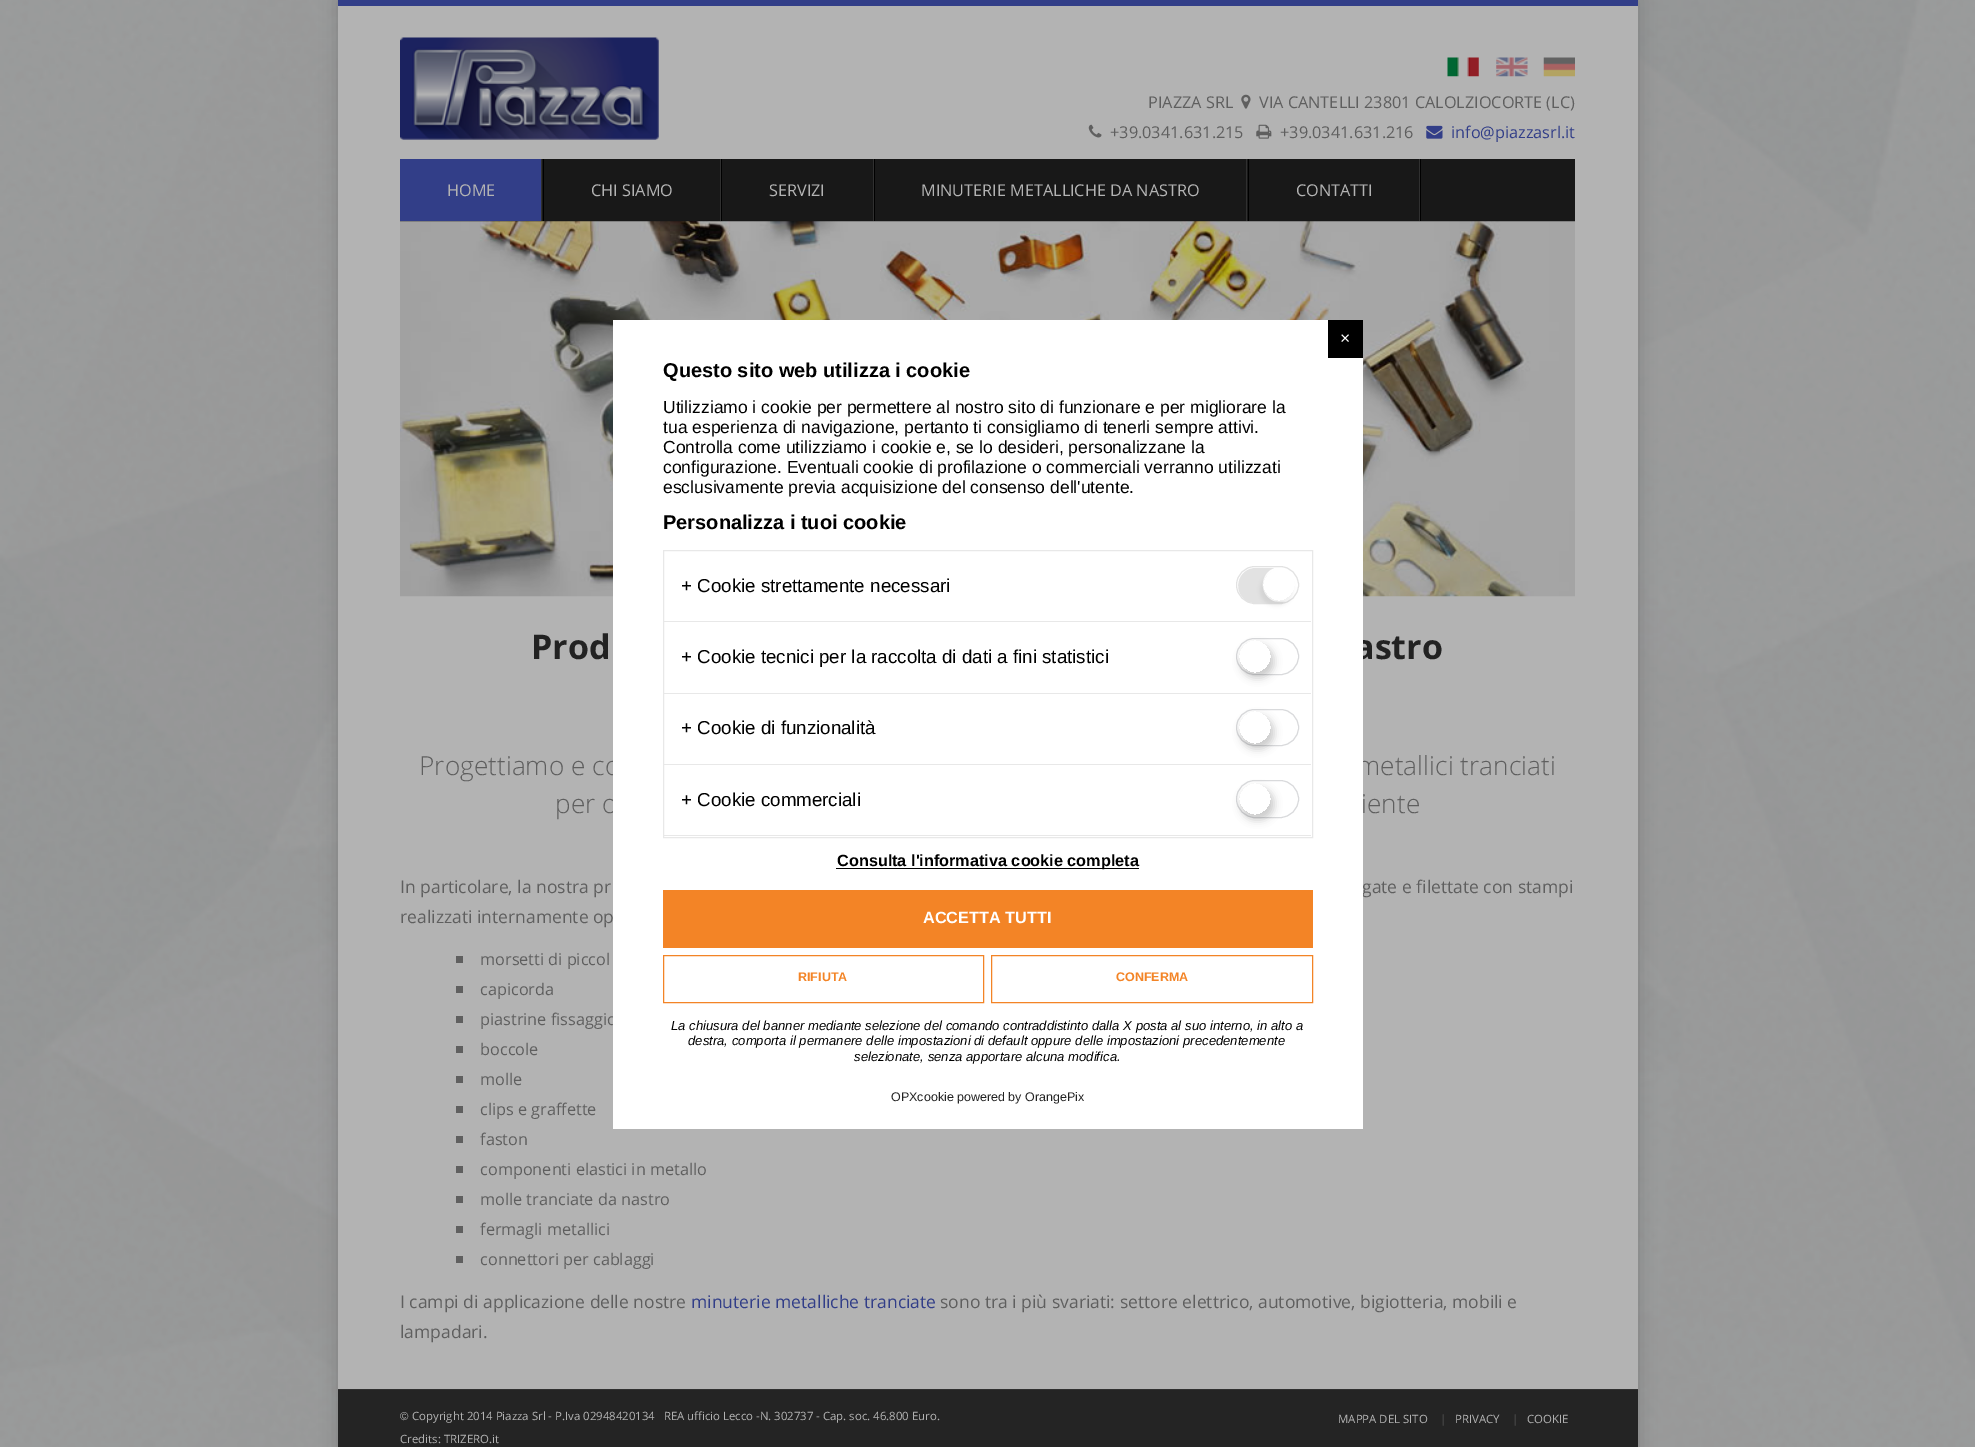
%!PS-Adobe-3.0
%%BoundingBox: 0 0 1975 1447
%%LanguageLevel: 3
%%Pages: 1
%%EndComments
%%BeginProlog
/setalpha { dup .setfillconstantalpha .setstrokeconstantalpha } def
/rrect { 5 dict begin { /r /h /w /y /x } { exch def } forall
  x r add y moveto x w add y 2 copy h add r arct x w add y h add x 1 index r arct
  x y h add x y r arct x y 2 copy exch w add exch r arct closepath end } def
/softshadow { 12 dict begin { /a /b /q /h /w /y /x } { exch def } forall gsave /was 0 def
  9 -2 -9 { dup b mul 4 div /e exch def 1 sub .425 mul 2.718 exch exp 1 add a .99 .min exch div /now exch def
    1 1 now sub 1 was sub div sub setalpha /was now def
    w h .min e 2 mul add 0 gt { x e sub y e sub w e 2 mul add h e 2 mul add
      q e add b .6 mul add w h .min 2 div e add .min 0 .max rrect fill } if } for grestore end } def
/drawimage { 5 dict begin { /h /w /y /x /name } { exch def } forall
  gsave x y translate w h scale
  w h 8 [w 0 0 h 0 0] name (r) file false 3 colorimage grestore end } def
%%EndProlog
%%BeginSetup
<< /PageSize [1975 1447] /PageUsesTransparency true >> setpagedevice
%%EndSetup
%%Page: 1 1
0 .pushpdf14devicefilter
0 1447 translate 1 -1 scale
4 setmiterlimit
1 setgray
0 0 1975 1447 rectfill
(images/1.raw) 0 0 1975 1447 drawimage
0 setgray
338 0 1300 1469 0 9 0.15 softshadow
0.702 setgray
338 6 1300 1383 rectfill
0.196 0.243 0.533 setrgbcolor
338 0 1300 6 rectfill
(images/2.raw) 400 37 259 103 drawimage
(images/3.raw) 1447 57 32 20 drawimage
(images/4.raw) 1496 57 32 20 drawimage
(images/5.raw) 1543 57 32 20 drawimage
(images/6.raw) 1241 94 10 15 drawimage
(images/7.raw) 1088 124 14 14 drawimage
(images/8.raw) 1256 124 16 15 drawimage
(images/9.raw) 1426 125 17 14 drawimage
0.094 setgray
400 159 1175 63 rectfill
0.196 0.243 0.533 setrgbcolor
400 159 141 62 rectfill
0 setgray
543 159 1 62 rectfill
0.188 setgray
541 159 1 62 rectfill
0 setgray
721 159 1 62 rectfill
0.188 setgray
720 159 1 62 rectfill
0 setgray
874 159 1 62 rectfill
0.188 setgray
873 159 1 62 rectfill
0 setgray
1248 159 1 62 rectfill
0.188 setgray
1246 159 1 62 rectfill
0 setgray
1420 159 1 62 rectfill
0.188 setgray
1419 159 1 62 rectfill
(images/10.raw) 400 221 1175 376 drawimage
0.373 setgray
456 956 7 7 rectfill
456 986 7 7 rectfill
456 1016 7 7 rectfill
456 1046 7 7 rectfill
456 1076 7 7 rectfill
456 1106 7 7 rectfill
456 1136 7 7 rectfill
456 1166 7 7 rectfill
456 1196 7 7 rectfill
456 1226 7 7 rectfill
456 1256 7 7 rectfill
0.141 setgray
338 1390 1300 57 rectfill
0.188 setgray
338 1389 1300 1 rectfill
/OpenSans-Regular [16.25 0 0 -16.25 0 0] selectfont
0.373 setgray
1148 108 moveto (PIAZZA SRL) show
1259 108 moveto (VIA CANTELLI 23801 CALOLZIOCORTE \(LC\)) show
1110 138 moveto (+39.0341.631.215) show
1280 138 moveto (+39.0341.631.216) show
0.196 0.243 0.533 setrgbcolor
1451 138 moveto (info@piazzasrl.it) show
0.702 setgray
447 196 moveto (HOME) show
591 196 moveto (CHI SIAMO) show
769 196 moveto (SERVIZI) show
921 196 moveto (MINUTERIE METALLICHE DA NASTRO) show
1296 196 moveto (CONTATTI) show
/OpenSans-Bold [34 0 0 -34 0 0] selectfont
0.133 setgray
531 659 moveto (Prod) show
1354 659 moveto (astro) show
/OpenSans-Light [26.25 0 0 -26.25 0 0] selectfont
0.373 setgray
419 775 moveto (Progettiamo e co) show
1357 775 moveto (metallici tranciati) show
555 813 moveto (per o) show
1361 813 moveto (iente) show
/OpenSans-Regular [17.5 0 0 -17.5 0 0] selectfont
400 893 moveto (In particolare, la nostra pr) show
1362 893 moveto (gate e filettate con stampi) show
400 923 moveto (realizzati internamente op) show
/OpenSans-Regular [16.25 0 0 -16.25 0 0] selectfont
480 965 moveto (morsetti di piccol) show
480 995 moveto (capicorda) show
480 1025 moveto (piastrine fissaggio) show
480 1055 moveto (boccole) show
480 1085 moveto (molle) show
480 1115 moveto (clips e graffette) show
480 1145 moveto (faston) show
480 1175 moveto (componenti elastici in metallo) show
480 1205 moveto (molle tranciate da nastro) show
480 1235 moveto (fermagli metallici) show
480 1265 moveto (connettori per cablaggi) show
/OpenSans-Regular [17.5 0 0 -17.5 0 0] selectfont
400 1308 moveto (I campi di applicazione delle nostre) show
0.196 0.243 0.533 setrgbcolor
691 1308 moveto (minuterie metalliche tranciate) show
0.373 setgray
940 1308 moveto (sono tra i più svariati: settore elettrico, automotive, bigiotteria, mobili e) show
400 1338 moveto (lampadari.) show
/LiberationSans-Regular [11.4 0 0 -11.4 0 0] selectfont
0.702 setgray
400 1420 moveto (©) show
/OpenSans-Regular [11.4 0 0 -11.4 0 0] selectfont
412 1420 moveto (Copyright 2014 Piazza Srl - P.Iva 02948420134   REA ufficio Lecco -N. 302737 - Cap. soc. 46.800 Euro.) show
400 1443 moveto (Credits: TRIZERO.it) show
1338 1423 moveto (MAPPA DEL SITO) show
0.325 setgray
1440 1423 moveto (|) show
0.702 setgray
1455 1423 moveto (PRIVACY) show
0.325 setgray
1512 1423 moveto (|) show
0.702 setgray
1527 1423 moveto (COOKIE) show
1 setgray
613 320 750 809 rectfill
0 setgray
1328 320 35 38 rectfill
/LiberationSans-Regular [17.5 0 0 -17.5 0 0] selectfont
1 setgray
1340 344 moveto (×) show
/LiberationSans-Bold [20 0 0 -20 0 0] selectfont
0 setgray
663 377 moveto (Questo sito web utilizza i cookie) show
/LiberationSans-Regular [17.5 0 0 -17.5 0 0] selectfont
663 413 moveto (Utilizziamo i cookie per permettere al nostro sito di funzionare e per migliorare la) show
663 433 moveto (tua esperienza di navigazione, pertanto ti consigliamo di tenerli sempre attivi.) show
663 453 moveto (Controlla come utilizziamo i cookie e, se lo desideri, personalizzane la) show
663 473 moveto (configurazione. Eventuali cookie di profilazione o commerciali verranno utilizzati) show
663 493 moveto (esclusivamente previa acquisizione del consenso dell'utente.) show
/LiberationSans-Bold [20 0 0 -20 0 0] selectfont
663 529 moveto (Personalizza i tuoi cookie) show
0.91 setgray
663.5 550.5 649 287 rectstroke
664 621 647 1 rectfill
/LiberationSans-Regular [18.75 0 0 -18.75 0 0] selectfont
0 setgray
681 592 moveto (+ Cookie strettamente necessari) show
0.886 setgray
newpath 1256 568 moveto 1237 568 1231 594 1249 602 curveto 1255 604 1262 603 1268 603 curveto 1274 603 1280 604 1286 602 curveto 1280 602 1276 602 1273 601 curveto 1258 594 1260 573 1274 568 curveto closepath fill
1236.5 566.5 62 37 18.5 rrect stroke
gsave
newpath 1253 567 moveto 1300 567 lineto 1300 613 lineto 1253 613 lineto closepath 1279 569 moveto 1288 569 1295 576 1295 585 curveto 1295 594 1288 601 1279 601 curveto 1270 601 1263 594 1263 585 curveto 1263 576 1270 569 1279 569 curveto closepath eoclip newpath
0 setgray
1260 574 33 32 16 2 0.05 softshadow
grestore
0.91 setgray
664 693 647 1 rectfill
0 setgray
681 663 moveto (+ Cookie tecnici per la raccolta di dati a fini statistici) show
0.851 0.855 0.863 setrgbcolor
1236.5 638.5 62 36 18 rrect stroke
gsave
newpath 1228 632 moveto 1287 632 lineto 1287 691 lineto 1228 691 lineto closepath 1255 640 moveto 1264 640 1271 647 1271 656 curveto 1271 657 lineto 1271 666 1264 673 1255 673 curveto 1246 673 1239 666 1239 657 curveto 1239 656 lineto 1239 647 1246 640 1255 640 curveto closepath eoclip newpath
0 setgray
1241 645 33 33 16.5 4 0.2 softshadow
grestore
0.91 setgray
664 764 647 1 rectfill
0 setgray
681 734 moveto (+ Cookie di funzionalità) show
0.851 0.855 0.863 setrgbcolor
1236.5 709.5 62 36 18 rrect stroke
gsave
newpath 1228 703 moveto 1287 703 lineto 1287 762 lineto 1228 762 lineto closepath 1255 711 moveto 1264 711 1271 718 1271 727 curveto 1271 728 lineto 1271 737 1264 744 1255 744 curveto 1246 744 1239 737 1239 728 curveto 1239 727 lineto 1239 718 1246 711 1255 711 curveto closepath eoclip newpath
0 setgray
1241 716 33 33 16.5 4 0.2 softshadow
grestore
0.91 setgray
664 835 647 1 rectfill
0 setgray
681 806 moveto (+ Cookie commerciali) show
0.851 0.855 0.863 setrgbcolor
1236.5 780.5 62 37 18.5 rrect stroke
gsave
newpath 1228 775 moveto 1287 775 lineto 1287 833 lineto 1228 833 lineto closepath 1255 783 moveto 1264 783 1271 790 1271 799 curveto 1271 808 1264 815 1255 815 curveto 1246 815 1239 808 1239 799 curveto 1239 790 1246 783 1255 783 curveto closepath eoclip newpath
0 setgray
1241 788 33 32 16 4 0.2 softshadow
grestore
0 setgray
836 868 303 1 rectfill
/LiberationSans-Bold [16.25 0 0 -16.25 0 0] selectfont
837 866 moveto (Consulta l'informativa cookie completa) show
0.953 0.518 0.149 setrgbcolor
663 890 650 58 rectfill
1 setgray
923 923 moveto (ACCETTA TUTTI) show
0.953 0.518 0.149 setrgbcolor
663.5 955.5 320 47 rectstroke
/LiberationSans-Bold [12.5 0 0 -12.5 0 0] selectfont
798 981 moveto (RIFIUTA) show
991.5 955.5 321 47 rectstroke
1116 981 moveto (CONFERMA) show
/LiberationSans-Italic [13.1 0 0 -13.1 0 0] selectfont
0 setgray
671 1030 moveto (La chiusura del banner mediante selezione del comando contraddistinto dalla X posta al suo interno, in alto a) show
688 1045 moveto (destra, comporta il permanere delle impostazioni di default oppure delle impostazioni precedentemente) show
854 1061 moveto (selezionate, senza apportare alcuna modifica.) show
/LiberationSans-Regular [12.5 0 0 -12.5 0 0] selectfont
0.133 setgray
891 1101 moveto (OPXcookie powered by OrangePix) show
.poppdf14devicefilter showpage
%%EOF
